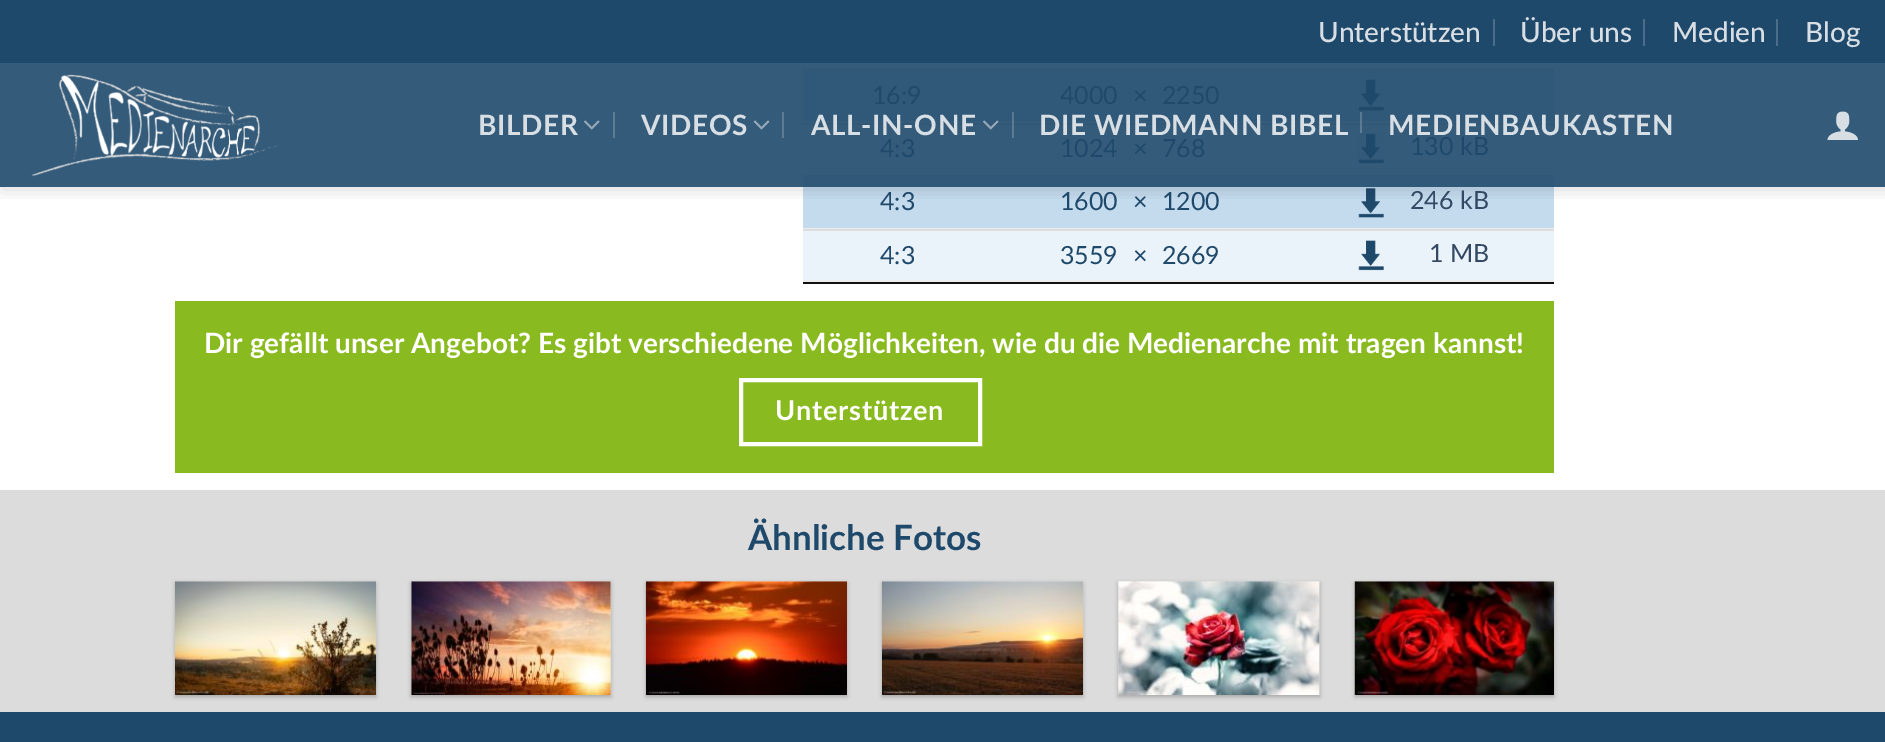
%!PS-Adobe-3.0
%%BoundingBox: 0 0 1885 742
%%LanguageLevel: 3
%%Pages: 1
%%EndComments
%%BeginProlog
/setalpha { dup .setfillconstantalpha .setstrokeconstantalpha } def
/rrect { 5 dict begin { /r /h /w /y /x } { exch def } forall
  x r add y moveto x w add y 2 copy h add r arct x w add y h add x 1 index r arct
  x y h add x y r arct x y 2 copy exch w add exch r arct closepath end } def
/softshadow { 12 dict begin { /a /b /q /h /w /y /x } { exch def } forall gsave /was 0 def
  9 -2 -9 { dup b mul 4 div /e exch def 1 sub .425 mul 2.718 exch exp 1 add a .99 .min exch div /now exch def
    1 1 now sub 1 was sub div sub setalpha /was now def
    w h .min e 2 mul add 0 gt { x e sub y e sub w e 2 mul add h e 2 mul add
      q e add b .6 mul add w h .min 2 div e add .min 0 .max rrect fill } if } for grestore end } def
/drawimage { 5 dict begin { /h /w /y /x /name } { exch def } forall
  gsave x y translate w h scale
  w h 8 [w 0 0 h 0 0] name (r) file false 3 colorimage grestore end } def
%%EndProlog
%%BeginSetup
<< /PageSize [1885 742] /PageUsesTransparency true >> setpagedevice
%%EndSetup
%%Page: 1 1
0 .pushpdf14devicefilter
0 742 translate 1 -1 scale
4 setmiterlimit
1 setgray
0 0 1885 742 rectfill
0.208 0.357 0.478 setrgbcolor
0 63 1885 124 rectfill
0.188 0.345 0.471 setrgbcolor
803 70 751 51 rectfill
0.349 0.475 0.576 setrgbcolor
1360 112 2 11 rectfill
1012 112 2 11 rectfill
0.196 0.345 0.463 setrgbcolor
803 68 751 2 rectfill
0.204 0.349 0.471 setrgbcolor
1012 121 2 2 rectfill
0.365 0.478 0.576 setrgbcolor
1012 121 2 2 rectfill
0.204 0.349 0.471 setrgbcolor
1360 121 2 2 rectfill
0.365 0.478 0.576 setrgbcolor
1360 121 2 2 rectfill
(images/6.raw) 1358 79 26 32 drawimage
0.361 0.482 0.58 setrgbcolor
1360 123 2 15 rectfill
1012 123 2 15 rectfill
0.196 0.345 0.463 setrgbcolor
803 123 751 2 rectfill
0.357 0.475 0.569 setrgbcolor
1012 123 2 2 rectfill
1360 123 2 2 rectfill
(images/7.raw) 1358 133 26 31 drawimage
0.769 0.859 0.933 setrgbcolor
803 187 751 41 rectfill
0.188 0.345 0.471 setrgbcolor
803 177 751 10 rectfill
0.196 0.345 0.463 setrgbcolor
803 175 751 2 rectfill
(images/8.raw) 1358 188 26 30 drawimage
gsave
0 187 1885 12 rectclip
0 setgray
2 2 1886 187 0 9 0.15 softshadow
grestore
0.122 0.286 0.42 setrgbcolor
0 0 1885 63 rectfill
0.298 0.427 0.537 setrgbcolor
1493 19 2 27 rectfill
1643 19 2 27 rectfill
1776 19 2 27 rectfill
(images/1.raw) 31 74 247 103 drawimage
(images/2.raw) 584 120 16 10 drawimage
0.369 0.486 0.58 setrgbcolor
613 112 2 26 rectfill
(images/3.raw) 753 120 17 10 drawimage
782 112 2 26 rectfill
(images/4.raw) 983 120 16 10 drawimage
(images/5.raw) 1827 111 31 29 drawimage
0.067 setgray
803 282 751 2 rectfill
0.925 setgray
803 228 751 1 rectfill
0.922 0.953 0.98 setrgbcolor
803 231 751 49 rectfill
0.867 setgray
803 229 751 2 rectfill
0.925 setgray
803 280 751 2 rectfill
(images/9.raw) 1358 240 26 31 drawimage
0.537 0.729 0.122 setrgbcolor
175 301 1379 172 rectfill
1 setgray
4 setlinewidth
741 380 239 64 rectstroke
0.863 setgray
0 490 1885 222 rectfill
0 setgray
175 583 201 114 0 2 0.24 softshadow
(images/10.raw) 175 581 202 114 drawimage
411 583 200 114 0 2 0.24 softshadow
(images/11.raw) 411 581 200 114 drawimage
646 583 201 114 0 2 0.24 softshadow
(images/12.raw) 645 581 202 114 drawimage
882 583 201 114 0 2 0.24 softshadow
(images/13.raw) 882 581 202 114 drawimage
1118 583 202 114 0 2 0.24 softshadow
(images/14.raw) 1118 581 202 114 drawimage
1355 583 199 114 0 2 0.24 softshadow
(images/15.raw) 1354 581 200 114 drawimage
0.122 0.286 0.42 setrgbcolor
0 712 1885 30 rectfill
/Lato-Medium [28 0 0 -28 0 0] selectfont
0.843 0.871 0.894 setrgbcolor
1318 42 moveto (Unterstützen) show
1520 42 moveto (Über uns) show
1672 42 moveto (Medien) show
1805 42 moveto (Blog) show
/Lato-Bold [28 0 0 -28 0 0] selectfont
478 135 moveto 0.6 0 (BILDER) ashow
641 135 moveto 0.6 0 (VIDEOS) ashow
811 135 moveto 0.6 0 (ALL-IN-ONE) ashow
1039 135 moveto 0.6 0 (DIE WIEDMANN BIBEL) ashow
1388 135 moveto 0.6 0 (MEDIENBAUKASTEN) ashow
/Lato-Regular [25 0 0 -25 0 0] selectfont
0.122 0.286 0.42 setrgbcolor
872 104 moveto (16:9) show
1060 104 moveto (4000) show
1133 104 moveto (×) show
1162 104 moveto (2250) show
880 157 moveto (4:3) show
1060 157 moveto (1024) show
1133 157 moveto (×) show
1162 157 moveto (768) show
1410 155 moveto (130 kB) show
880 210 moveto (4:3) show
1060 210 moveto (1600) show
1133 210 moveto (×) show
1162 210 moveto (1200) show
0.2 0.282 0.384 setrgbcolor
1410 209 moveto (246 kB) show
0.122 0.286 0.42 setrgbcolor
880 264 moveto (4:3) show
1060 264 moveto (3559) show
1133 264 moveto (×) show
1162 264 moveto (2669) show
0.2 0.282 0.384 setrgbcolor
1429 262 moveto (1 MB) show
/Lato-Bold [28 0 0 -28 0 0] selectfont
1 setgray
204 353 moveto (Dir gefällt unser Angebot? Es gibt verschiedene Möglichkeiten, wie du die Medienarche mit tragen kannst!) show
/Lato-Bold [27.25 0 0 -27.25 0 0] selectfont
775 420 moveto 0.75 0 (Unterstützen) ashow
/Lato-Bold [35 0 0 -35 0 0] selectfont
0.122 0.286 0.42 setrgbcolor
748 550 moveto (Ähnliche Fotos) show
.poppdf14devicefilter showpage
%%EOF
